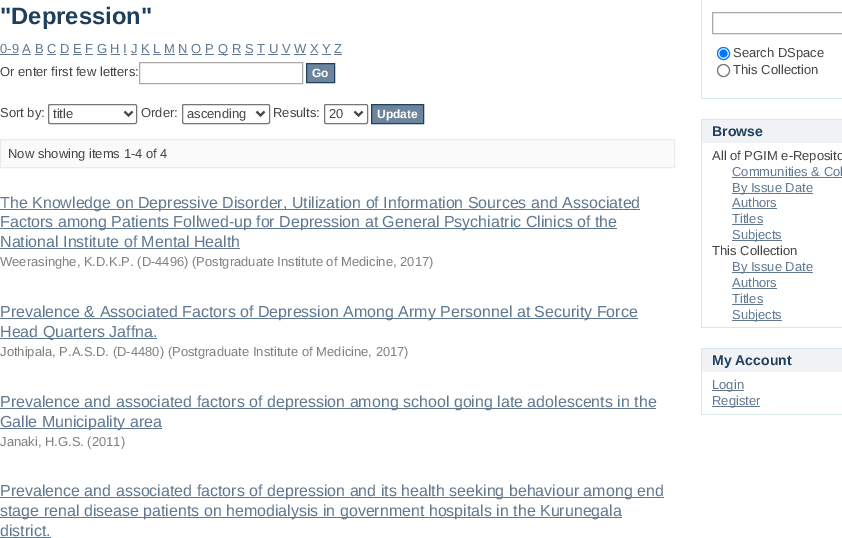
%!PS-Adobe-3.0
%%BoundingBox: 0 0 842 538
%%LanguageLevel: 3
%%Pages: 1
%%EndComments
%%BeginProlog
/rrect { 5 dict begin { /r /h /w /y /x } { exch def } forall
  x r add y moveto x w add y 2 copy h add r arct x w add y h add x 1 index r arct
  x y h add x y r arct x y 2 copy exch w add exch r arct closepath end } def
%%EndProlog
%%BeginSetup
<< /PageSize [842 538] >> setpagedevice
%%EndSetup
%%Page: 1 1
0 538 translate 1 -1 scale
4 setmiterlimit
1 setgray
0 0 842 538 rectfill
0.376 0.471 0.565 setrgbcolor
0 54 19 1 rectfill
218 54 10 1 rectfill
22 54 9 1 rectfill
35 54 8 1 rectfill
47 54 9 1 rectfill
60 54 9 1 rectfill
73 54 9 1 rectfill
85 54 8 1 rectfill
97 54 10 1 rectfill
111 54 9 1 rectfill
124 54 3 1 rectfill
131 54 6 1 rectfill
141 54 9 1 rectfill
153 54 8 1 rectfill
164 54 11 1 rectfill
179 54 9 1 rectfill
192 54 10 1 rectfill
205 54 9 1 rectfill
232 54 9 1 rectfill
245 54 8 1 rectfill
257 54 8 1 rectfill
268 54 10 1 rectfill
281 54 9 1 rectfill
294 54 12 1 rectfill
310 54 8 1 rectfill
322 54 9 1 rectfill
334 54 8 1 rectfill
0.667 setgray
139.5 62.5 163 21 rectstroke
0.427 0.522 0.612 setrgbcolor
newpath 306.5 63.5 moveto 334.5 63.5 lineto 334.5 82.5 lineto 306.5 82.5 lineto closepath gsave fill grestore
0.122 0.247 0.369 setrgbcolor
stroke
0.463 setgray
48.5 104.5 88 19 1.5 rrect stroke
0.267 setgray
2 setlinewidth
newpath 124.5 111.5 moveto 128.5 115.5 lineto 132.5 111.5 lineto stroke
0.463 setgray
1 setlinewidth
182.5 104.5 87 19 1.5 rrect stroke
0.267 setgray
2 setlinewidth
newpath 256.5 111.5 moveto 260.5 115.5 lineto 264.5 111.5 lineto stroke
0.463 setgray
1 setlinewidth
324.5 104.5 43 19 1.5 rrect stroke
0.267 setgray
2 setlinewidth
newpath 354.5 111.5 moveto 358.5 115.5 lineto 362.5 111.5 lineto stroke
0.427 0.522 0.612 setrgbcolor
newpath 371.5 104.5 moveto 423.5 104.5 lineto 423.5 123.5 lineto 371.5 123.5 lineto closepath gsave fill grestore
0.122 0.247 0.369 setrgbcolor
1 setlinewidth
stroke
0.98 setgray
newpath 0.5 139.5 moveto 674.5 139.5 lineto 674.5 167.5 lineto 0.5 167.5 lineto closepath gsave fill grestore
0.922 setgray
stroke
0.376 0.471 0.565 setrgbcolor
0 209 640 1 rectfill
0 228 617 1 rectfill
0 248 240 1 rectfill
0 318 638 1 rectfill
0 338 157 1 rectfill
0 408 656 1 rectfill
0 428 162 1 rectfill
0 497 664 1 rectfill
0 517 622 1 rectfill
0 537 51 1 rectfill
0.847 0.91 0.922 setrgbcolor
701 98 141 1 rectfill
701 0 1 99 rectfill
0.667 setgray
712.5 12.5 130 21 rectstroke
0 0.459 1 setrgbcolor
newpath 723.5 53.5 6 0 360 arc closepath stroke
newpath 723.5 53.5 4 0 360 arc closepath fill
0.463 setgray
newpath 723.5 70.5 6 0 360 arc closepath stroke
0.941 0.949 0.961 setrgbcolor
702 120 140 23 rectfill
0.847 0.91 0.922 setrgbcolor
701 119 141 1 rectfill
701 119 1 24 rectfill
701 327 141 1 rectfill
701 143 1 185 rectfill
0.376 0.471 0.565 setrgbcolor
732 177 110 1 rectfill
732 193 81 1 rectfill
732 208 45 1 rectfill
732 224 31 1 rectfill
732 240 50 1 rectfill
732 272 81 1 rectfill
732 288 45 1 rectfill
732 304 31 1 rectfill
732 320 50 1 rectfill
0.941 0.949 0.961 setrgbcolor
702 349 140 23 rectfill
0.847 0.91 0.922 setrgbcolor
701 348 141 1 rectfill
701 348 1 24 rectfill
701 414 141 1 rectfill
701 372 1 43 rectfill
0.376 0.471 0.565 setrgbcolor
712 390 32 1 rectfill
712 406 48 1 rectfill
/LiberationSans-Bold [23.75 0 0 -23.75 0 0] selectfont
0.122 0.247 0.369 setrgbcolor
0 24 moveto ("Depression") show
/LiberationSans-Regular [13 0 0 -13 0 0] selectfont
0.376 0.471 0.565 setrgbcolor
0 53 moveto (0-9 A B C D E F G H I J K L M N O P) show
218 53 moveto (Q R S T U V W X Y Z) show
0.267 setgray
0 76 moveto (Or enter first few letters:) show
/LiberationSans-Bold [12 0 0 -12 0 0] selectfont
1 setgray
312 77 moveto (Go) show
/LiberationSans-Regular [13 0 0 -13 0 0] selectfont
0.267 setgray
0 117 moveto (Sort by:) show
53 118 moveto (title) show
141 117 moveto (Order:) show
187 118 moveto (ascending) show
273 117 moveto (Results:) show
329 118 moveto (20) show
/LiberationSans-Bold [12 0 0 -12 0 0] selectfont
1 setgray
377 118 moveto (Update) show
/LiberationSans-Regular [13 0 0 -13 0 0] selectfont
0.267 setgray
8 158 moveto (Now showing items 1-4 of 4) show
/LiberationSans-Regular [16 0 0 -16 0 0] selectfont
0.376 0.471 0.565 setrgbcolor
0 208 moveto (The Knowledge on Depressive Disorder, Utilization of Information Sources and Associated) show
0 227 moveto (Factors among Patients Follwed-up for Depression at General Psychiatric Clinics of the) show
0 247 moveto (National Institute of Mental Health) show
/LiberationSans-Regular [13 0 0 -13 0 0] selectfont
0.502 setgray
0 266 moveto (Weerasinghe, K.D.K.P. \(D-4496\) \(Postgraduate Institute of Medicine, 2017\)) show
/LiberationSans-Regular [16 0 0 -16 0 0] selectfont
0.376 0.471 0.565 setrgbcolor
0 317 moveto (Prevalence & Associated Factors of Depression Among Army Personnel at Security Force) show
0 337 moveto (Head Quarters Jaffna.) show
/LiberationSans-Regular [13 0 0 -13 0 0] selectfont
0.502 setgray
0 356 moveto (Jothipala, P.A.S.D. \(D-4480\) \(Postgraduate Institute of Medicine, 2017\)) show
/LiberationSans-Regular [16 0 0 -16 0 0] selectfont
0.376 0.471 0.565 setrgbcolor
0 407 moveto (Prevalence and associated factors of depression among school going late adolescents in the) show
0 427 moveto (Galle Municipality area) show
/LiberationSans-Regular [13 0 0 -13 0 0] selectfont
0.502 setgray
0 446 moveto (Janaki, H.G.S. \(2011\)) show
/LiberationSans-Regular [16 0 0 -16 0 0] selectfont
0.376 0.471 0.565 setrgbcolor
0 496 moveto (Prevalence and associated factors of depression and its health seeking behaviour among end) show
0 516 moveto (stage renal disease patients on hemodialysis in government hospitals in the Kurunegala) show
0 536 moveto (district.) show
/LiberationSans-Regular [13 0 0 -13 0 0] selectfont
0.267 setgray
733 57 moveto (Search DSpace) show
733 74 moveto (This Collection) show
/LiberationSans-Bold [14 0 0 -14 0 0] selectfont
0.122 0.247 0.369 setrgbcolor
712 136 moveto (Browse) show
/LiberationSans-Regular [13 0 0 -13 0 0] selectfont
0.267 setgray
712 160 moveto (All of PGIM e-Reposito) show
0.376 0.471 0.565 setrgbcolor
732 176 moveto (Communities & Col) show
732 192 moveto (By Issue Date) show
732 207 moveto (Authors) show
732 223 moveto (Titles) show
732 239 moveto (Subjects) show
0.267 setgray
712 255 moveto (This Collection) show
0.376 0.471 0.565 setrgbcolor
732 271 moveto (By Issue Date) show
732 287 moveto (Authors) show
732 303 moveto (Titles) show
732 319 moveto (Subjects) show
/LiberationSans-Bold [14 0 0 -14 0 0] selectfont
0.122 0.247 0.369 setrgbcolor
712 365 moveto (My Account) show
/LiberationSans-Regular [13 0 0 -13 0 0] selectfont
0.376 0.471 0.565 setrgbcolor
712 389 moveto (Login) show
712 405 moveto (Register) show
showpage
%%EOF
